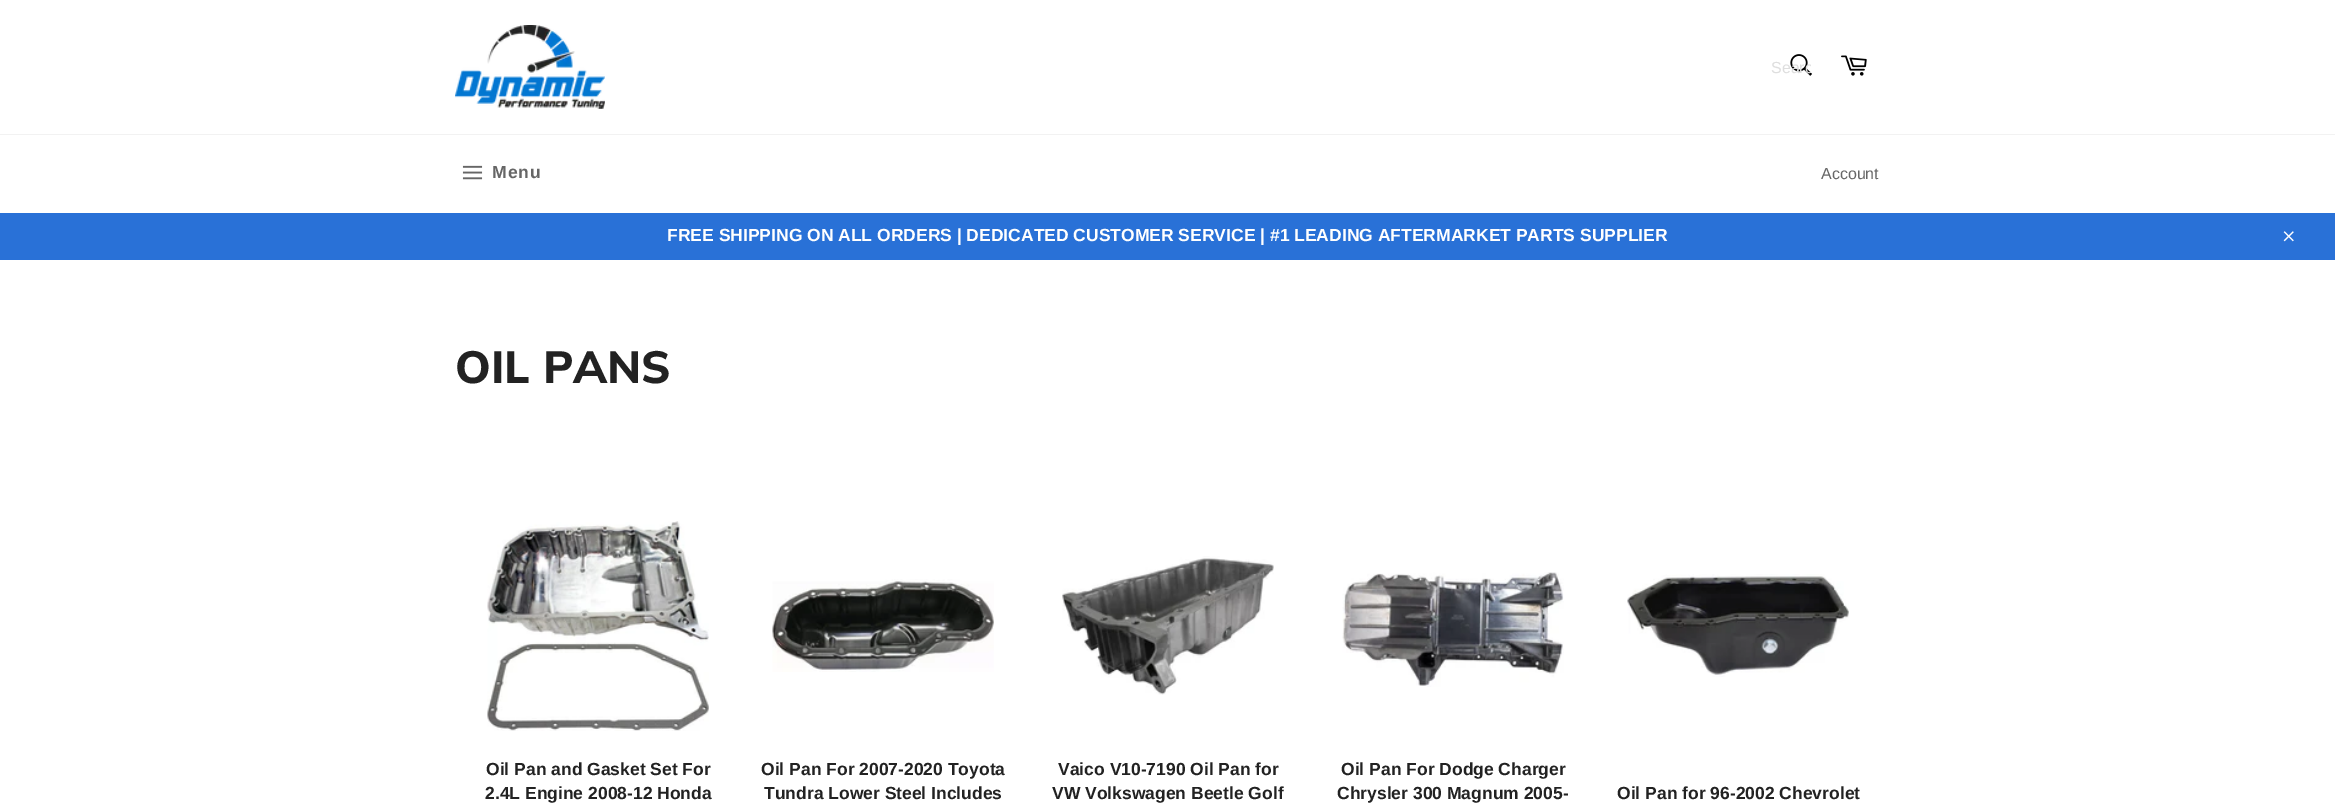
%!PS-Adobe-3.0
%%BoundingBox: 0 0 2335 810
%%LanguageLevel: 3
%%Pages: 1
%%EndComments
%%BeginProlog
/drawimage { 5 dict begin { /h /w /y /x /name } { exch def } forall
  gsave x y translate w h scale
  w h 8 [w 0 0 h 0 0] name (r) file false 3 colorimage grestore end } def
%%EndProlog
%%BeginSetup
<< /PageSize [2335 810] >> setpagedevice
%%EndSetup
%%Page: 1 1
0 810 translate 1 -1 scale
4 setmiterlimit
1 setgray
0 0 2335 810 rectfill
(images/1.raw) 455 25 150 84 drawimage
(images/2.raw) 1790 54 22 22 drawimage
(images/3.raw) 1841 55 26 21 drawimage
0.949 setgray
0 134 2335 1 rectfill
(images/4.raw) 462 165 21 15 drawimage
0.161 0.443 0.843 setrgbcolor
0 213 2335 47 rectfill
(images/5.raw) 2283 231 11 11 drawimage
(images/6.raw) 487 521 222 210 drawimage
(images/7.raw) 772 579 222 93 drawimage
(images/8.raw) 1062 556 212 139 drawimage
(images/9.raw) 1342 572 222 115 drawimage
(images/10.raw) 1627 574 222 103 drawimage
gsave
1771 58 40 18 rectclip
/Arimo-Regular [16 0 0 -16 0 0] selectfont
0.871 setgray
1771 73 moveto (Searc) show
grestore
/Arimo-Bold [17.5 0 0 -17.5 0 0] selectfont
0.4 setgray
492 178 moveto 1 0 (Menu) ashow
/Arimo-Regular [16 0 0 -16 0 0] selectfont
1821 179 moveto (Account) show
/Arimo-Bold [17.5 0 0 -17.5 0 0] selectfont
1 setgray
667 241 moveto (FREE SHIPPING ON ALL ORDERS | DEDICATED CUSTOMER SERVICE | #1 LEADING AFTERMARKET PARTS SUPPLIER) show
/Muli-ExtraBold [45 0 0 -45 0 0] selectfont
0.133 setgray
455 383 moveto (OIL PANS) show
/Arimo-Bold [17.5 0 0 -17.5 0 0] selectfont
486 775 moveto (Oil Pan and Gasket Set For) show
485 799 moveto (2.4L Engine 2008-12 Honda) show
761 775 moveto (Oil Pan For 2007-2020 Toyota) show
764 799 moveto (Tundra Lower Steel Includes) show
1058 775 moveto (Vaico V10-7190 Oil Pan for) show
1052 799 moveto (VW Volkswagen Beetle Golf) show
1341 775 moveto (Oil Pan For Dodge Charger) show
1337 799 moveto (Chrysler 300 Magnum 2005-) show
1617 799 moveto (Oil Pan for 96-2002 Chevrolet) show
showpage
%%EOF
